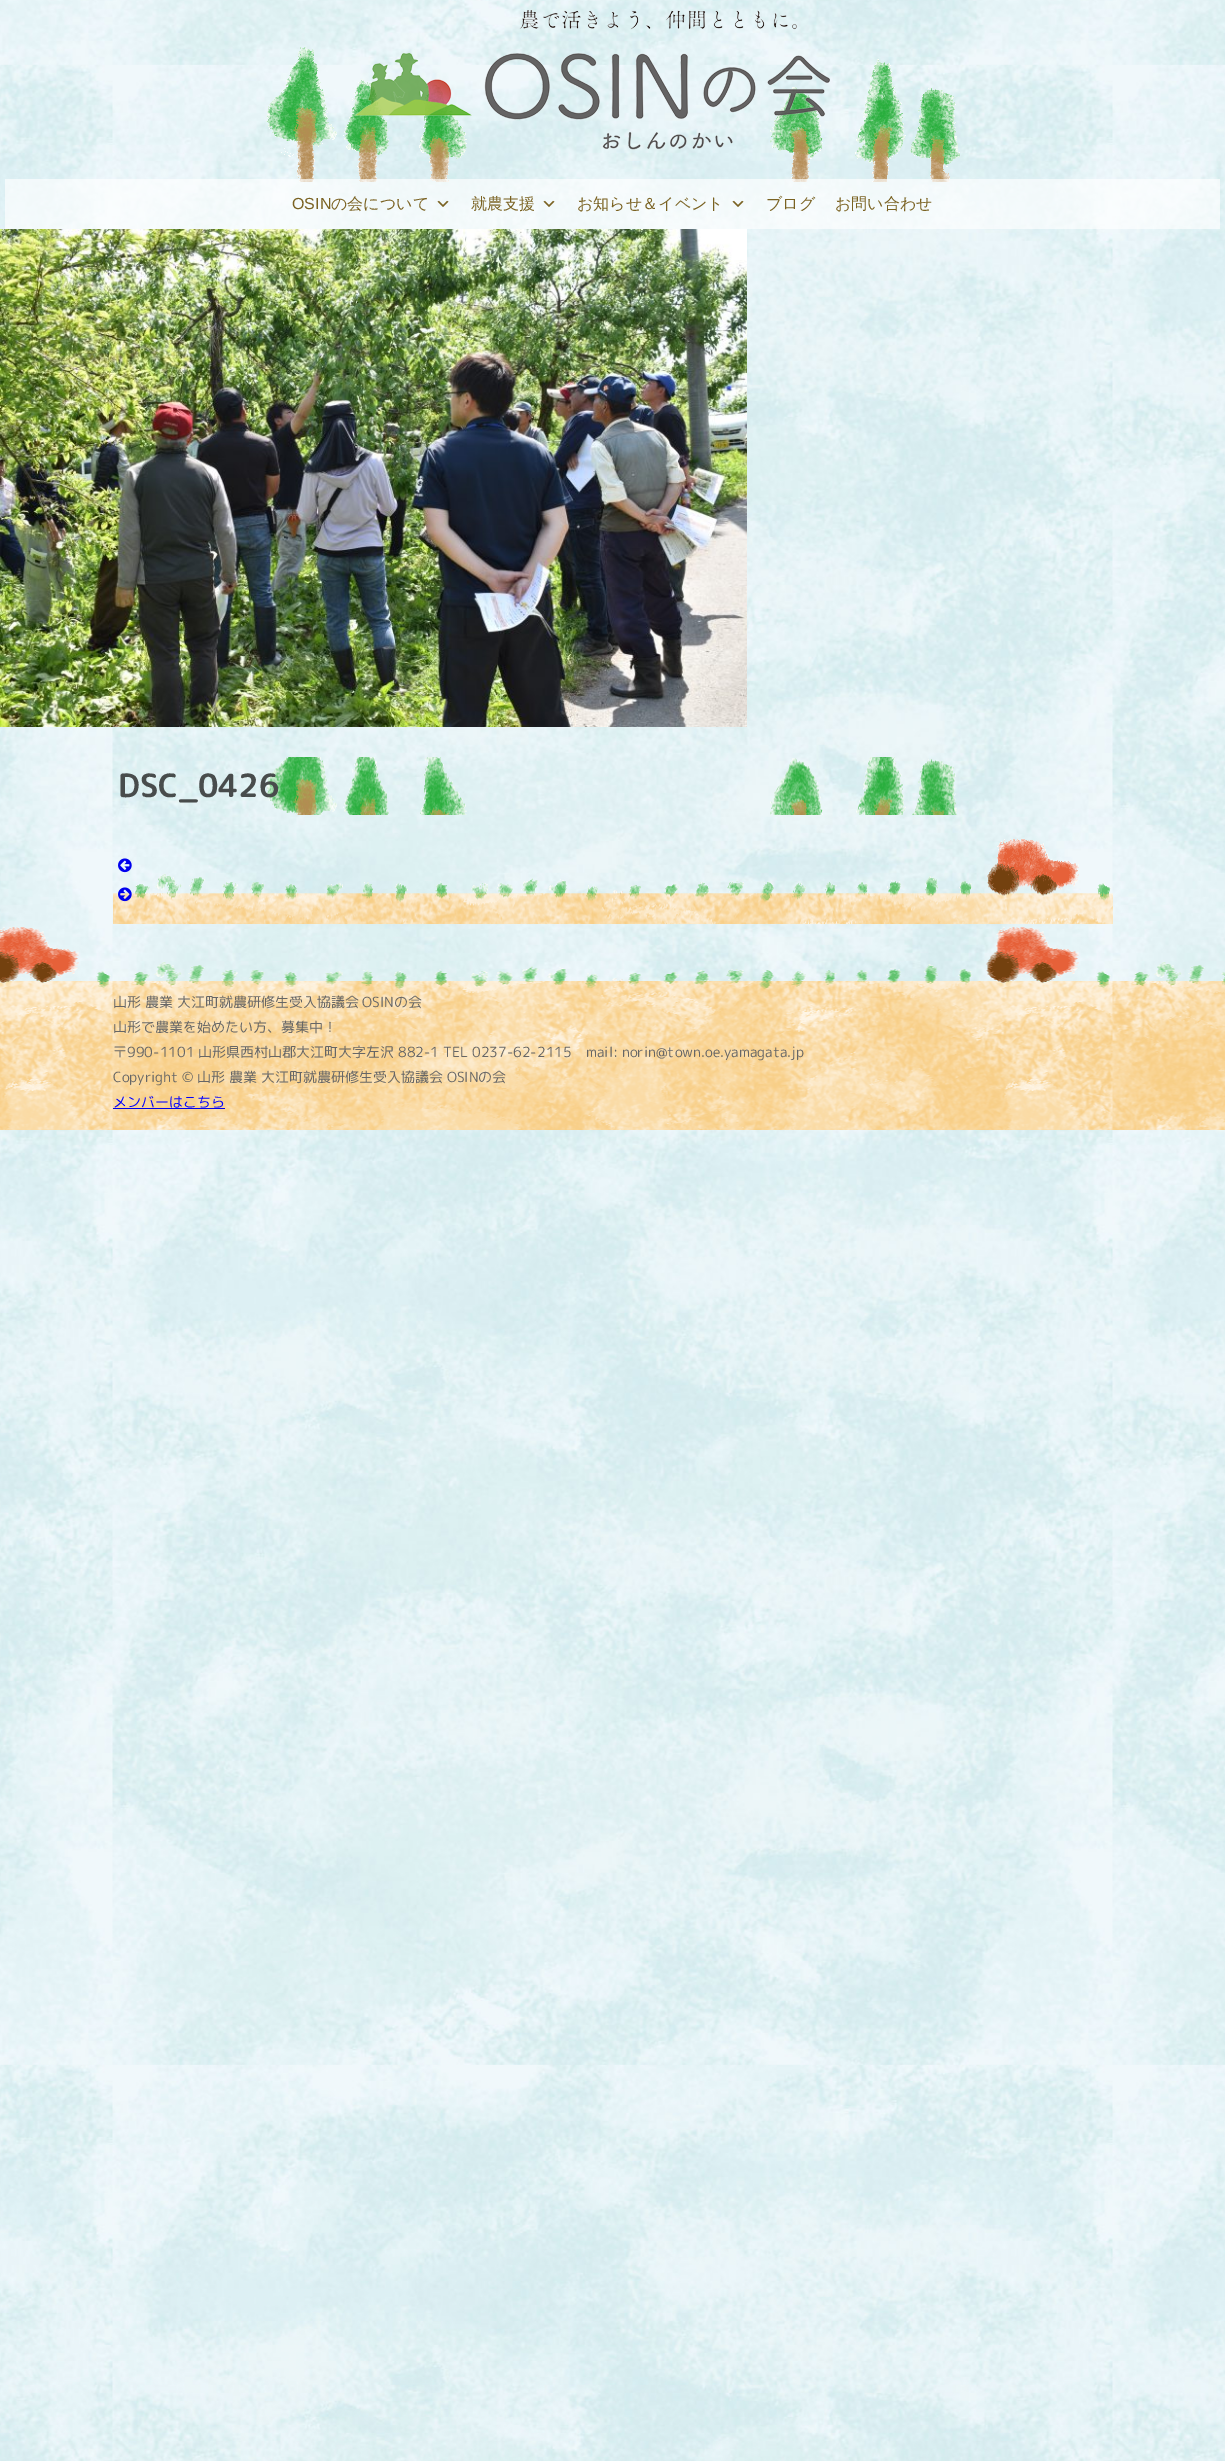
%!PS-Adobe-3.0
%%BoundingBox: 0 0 1225 2461
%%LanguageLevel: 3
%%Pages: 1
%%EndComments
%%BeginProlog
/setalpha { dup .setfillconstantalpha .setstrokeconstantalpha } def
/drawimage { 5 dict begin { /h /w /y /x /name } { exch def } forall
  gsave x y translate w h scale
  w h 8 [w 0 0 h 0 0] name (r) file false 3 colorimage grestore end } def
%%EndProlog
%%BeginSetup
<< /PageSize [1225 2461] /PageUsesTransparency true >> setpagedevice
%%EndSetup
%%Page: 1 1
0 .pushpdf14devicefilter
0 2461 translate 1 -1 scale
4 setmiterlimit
1 setgray
0 0 1225 2461 rectfill
(images/1.raw) 0 0 1225 2461 drawimage
(images/2.raw) 266 47 694 135 drawimage
(images/3.raw) 354 10 476 140 drawimage
0.65 setalpha
5 179 1215 50 rectfill
1 setalpha
(images/4.raw) 437 200 12 7 drawimage
(images/5.raw) 543 200 12 7 drawimage
(images/6.raw) 732 200 12 7 drawimage
(images/7.raw) 0 229 747 498 drawimage
(images/8.raw) 266 757 692 58 drawimage
(images/9.raw) 113 839 1000 85 drawimage
(images/10.raw) 118 858 14 15 drawimage
(images/11.raw) 118 887 14 15 drawimage
(images/12.raw) 0 927 1225 203 drawimage
0 0 0.933 setrgbcolor
113 1108 112 1 rectfill
/LiberationSans-Regular [16 0 0 -16 0 0] selectfont
0.478 0.384 0.133 setrgbcolor
292 209 moveto (OSIN) show
/WenQuanYiZenHei-Medium [16 0 0 -16 0 0] selectfont
331 209 moveto (の会について) show
471 209 moveto (就農支援) show
577 209 moveto (お知らせ＆イベント) show
766 209 moveto (ブログ) show
835 209 moveto (お問い合わせ) show
/RoundedMplus1cBold-Bold [32 0 0 -32 0 0] selectfont
0.282 0.298 0.298 setrgbcolor
118 797 moveto (DSC_0426) show
/RoundedMplus1c-Regular [14 0 0 -14 0 0] selectfont
0.4 setgray
113 1007 moveto (山形 農業 大江町就農研修生受入協議会 OSINの会) show
113 1032 moveto (山形で農業を始めたい方、募集中！) show
113 1057 moveto (〒990-1101 山形県西村山郡大江町大字左沢 882-1 TEL 0237-62-2115　mail: norin@town.oe.yamagata.jp) show
113 1082 moveto (Copyright © 山形 農業 大江町就農研修生受入協議会 OSINの会) show
0 0 1 setrgbcolor
113 1107 moveto (メンバーはこちら) show
.poppdf14devicefilter showpage
%%EOF
